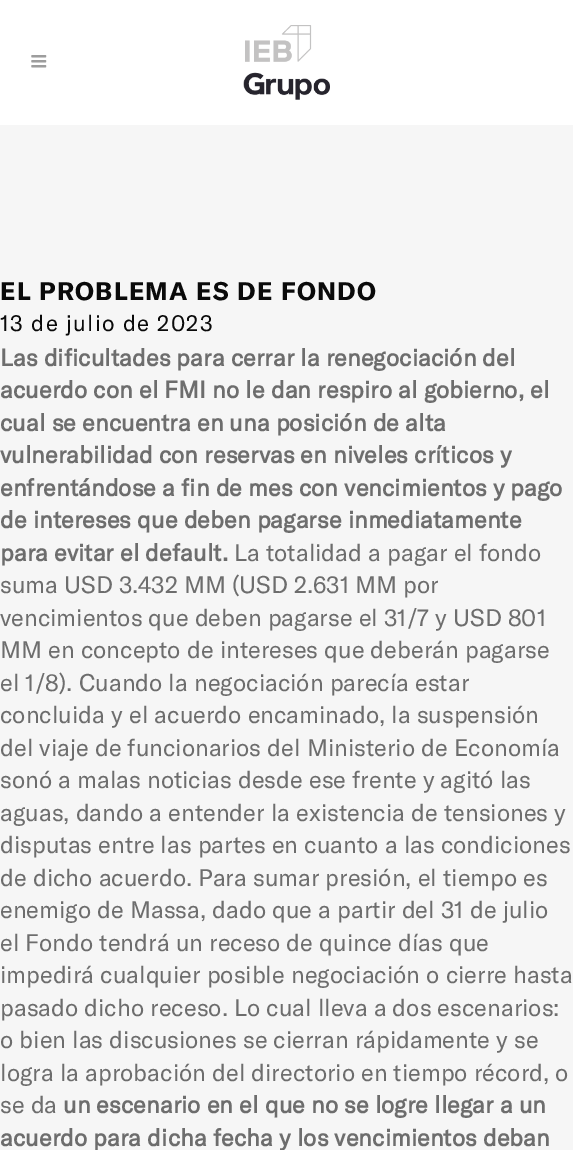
%!PS-Adobe-3.0
%%BoundingBox: 0 0 573 1150
%%LanguageLevel: 3
%%Pages: 1
%%EndComments
%%BeginProlog
/drawimage { 5 dict begin { /h /w /y /x /name } { exch def } forall
  gsave x y translate w h scale
  w h 8 [w 0 0 h 0 0] name (r) file false 3 colorimage grestore end } def
%%EndProlog
%%BeginSetup
<< /PageSize [573 1150] >> setpagedevice
%%EndSetup
%%Page: 1 1
0 1150 translate 1 -1 scale
4 setmiterlimit
0.965 setgray
0 0 573 1150 rectfill
1 setgray
0 0 573 125 rectfill
(images/1.raw) 31 55 16 13 drawimage
(images/2.raw) 243 25 87 75 drawimage
/GTAmerica-Bold [25 0 0 -25 0 0] selectfont
0.039 setgray
0 300 moveto 1.25 0 (EL PROBLEMA ES DE FONDO) ashow
/GTAmerica-Regular [22.5 0 0 -22.5 0 0] selectfont
0 331 moveto 1.25 0 (13 de julio de 2023) ashow
/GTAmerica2-Bold [23.75 0 0 -23.75 0 0] selectfont
0.427 setgray
0 366 moveto (Las dificultades para cerrar la renegociación del) show
0 398 moveto (acuerdo con el FMI no le dan respiro al gobierno, el) show
0 431 moveto (cual se encuentra en una posición de alta) show
0 463 moveto (vulnerabilidad con reservas en niveles críticos y) show
0 496 moveto (enfrentándose a fin de mes con vencimientos y pago) show
0 528 moveto (de intereses que deben pagarse inmediatamente) show
0 561 moveto (para evitar el default.) show
/GTAmerica-Regular [23.75 0 0 -23.75 0 0] selectfont
234 561 moveto (La totalidad a pagar el fondo) show
0 593 moveto (suma USD 3.432 MM \(USD 2.631 MM por) show
0 626 moveto (vencimientos que deben pagarse el 31/7 y USD 801) show
0 658 moveto (MM en concepto de intereses que deberán pagarse) show
0 691 moveto (el 1/8\). Cuando la negociación parecía estar) show
0 723 moveto (concluida y el acuerdo encaminado, la suspensión) show
0 756 moveto (del viaje de funcionarios del Ministerio de Economía) show
0 788 moveto (sonó a malas noticias desde ese frente y agitó las) show
0 821 moveto (aguas, dando a entender la existencia de tensiones y) show
0 853 moveto (disputas entre las partes en cuanto a las condiciones) show
0 886 moveto (de dicho acuerdo. Para sumar presión, el tiempo es) show
0 918 moveto (enemigo de Massa, dado que a partir del 31 de julio) show
0 951 moveto (el Fondo tendrá un receso de quince días que) show
0 983 moveto (impedirá cualquier posible negociación o cierre hasta) show
0 1016 moveto (pasado dicho receso. Lo cual lleva a dos escenarios:) show
0 1048 moveto (o bien las discusiones se cierran rápidamente y se) show
0 1081 moveto (logra la aprobación del directorio en tiempo récord, o) show
0 1113 moveto (se da) show
/GTAmerica2-Bold [23.75 0 0 -23.75 0 0] selectfont
63 1113 moveto (un escenario en el que no se logre llegar a un) show
0 1146 moveto (acuerdo para dicha fecha y los vencimientos deban) show
showpage
%%EOF
